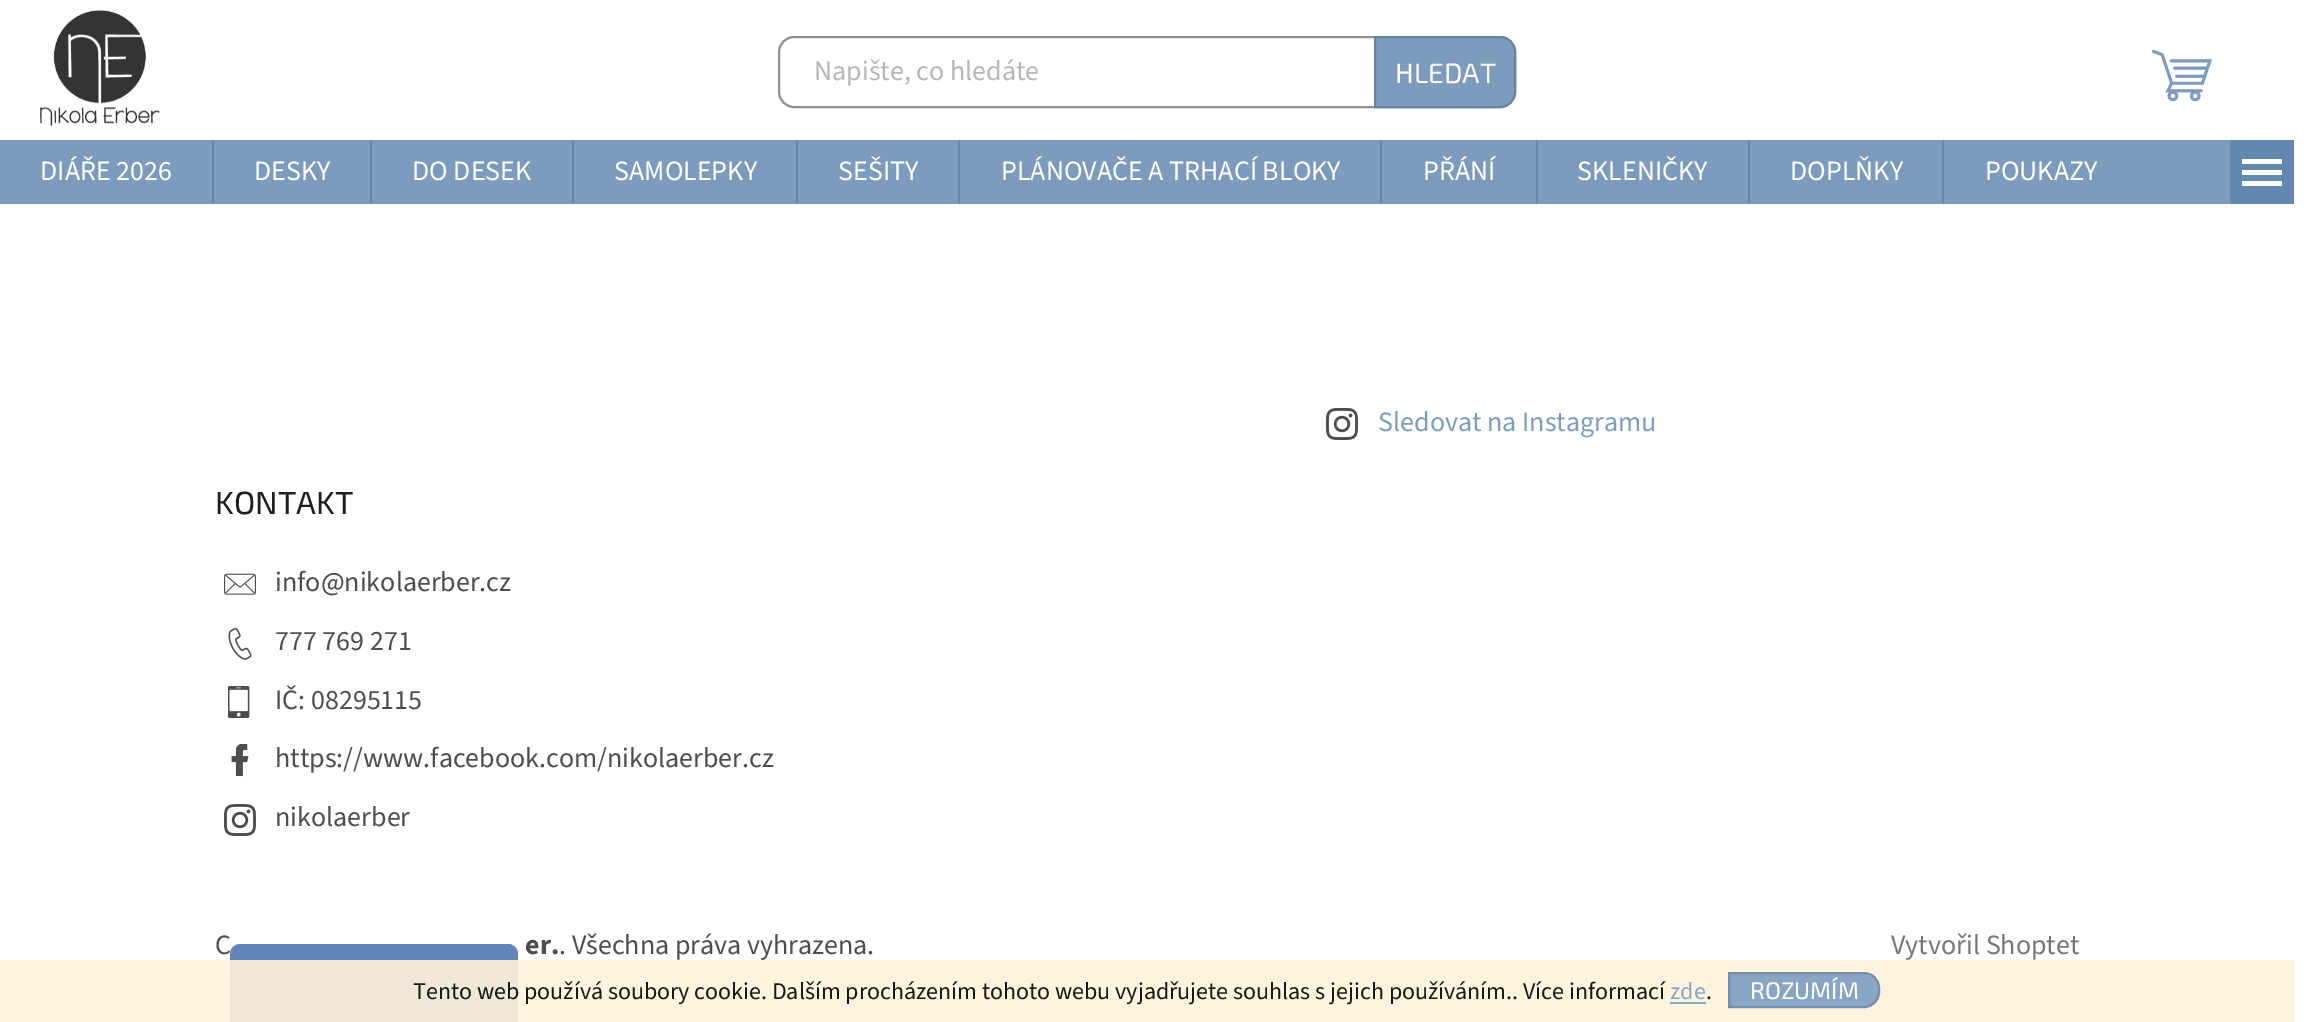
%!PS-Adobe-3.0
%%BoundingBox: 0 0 2324 1022
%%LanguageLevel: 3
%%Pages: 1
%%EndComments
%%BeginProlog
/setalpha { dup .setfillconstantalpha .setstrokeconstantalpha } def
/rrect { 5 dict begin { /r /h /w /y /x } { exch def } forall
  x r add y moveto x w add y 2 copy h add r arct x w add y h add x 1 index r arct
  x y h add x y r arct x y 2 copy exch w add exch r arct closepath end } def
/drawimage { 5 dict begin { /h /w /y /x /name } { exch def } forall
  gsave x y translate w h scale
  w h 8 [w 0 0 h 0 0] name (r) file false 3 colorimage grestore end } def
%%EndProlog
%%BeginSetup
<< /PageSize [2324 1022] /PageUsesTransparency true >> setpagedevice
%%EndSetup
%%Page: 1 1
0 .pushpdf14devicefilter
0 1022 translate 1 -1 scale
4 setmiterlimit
1 setgray
0 0 2324 1022 rectfill
(images/1.raw) 40 10 120 116 drawimage
0.569 setgray
2 setlinewidth
779 37 736 70 15 rrect stroke
0.486 0.608 0.741 setrgbcolor
newpath 1375 37 moveto 1500 37 lineto 1508.5 37 1515 43.5 1515 52 curveto 1515 92 lineto 1515 100.5 1508.5 107 1500 107 curveto 1375 107 lineto closepath gsave fill grestore
0.412 0.51 0.624 setrgbcolor
stroke
(images/2.raw) 2152 49 60 53 drawimage
0.486 0.608 0.741 setrgbcolor
0 140 2230 64 rectfill
0.388 0.533 0.69 setrgbcolor
212 140 2 64 rectfill
370 140 2 64 rectfill
572 140 2 64 rectfill
796 140 2 64 rectfill
958 140 2 64 rectfill
1380 140 2 64 rectfill
1536 140 2 64 rectfill
1748 140 2 64 rectfill
1942 140 2 64 rectfill
2230 140 64 64 rectfill
1 setgray
newpath 2242 186 moveto 2282 186 lineto 2282 181 lineto 2242 181 lineto closepath 2242 175 moveto 2282 175 lineto 2282 170 lineto 2242 170 lineto closepath 2242 159 moveto 2242 164 lineto 2282 164 lineto 2282 159 lineto closepath fill
(images/3.raw) 1326 408 32 32 drawimage
(images/4.raw) 224 573 32 22 drawimage
(images/5.raw) 228 628 24 32 drawimage
(images/6.raw) 228 686 22 32 drawimage
(images/7.raw) 231 744 18 33 drawimage
(images/3.raw) 224 804 32 32 drawimage
0.38 0.522 0.718 setrgbcolor
newpath 240 944 moveto 508 944 lineto 513.5 944 518 948.5 518 954 curveto 518 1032 lineto 230 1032 lineto 230 954 lineto 230 948.5 234.5 944 240 944 curveto closepath fill
0.9 setalpha
0.992 0.953 0.855 setrgbcolor
0 960 2294 62 rectfill
1 setalpha
0.537 0.647 0.769 setrgbcolor
1670 1002 36 2 rectfill
newpath 1729 973 moveto 1864 973 lineto 1872.5 973 1879 979.5 1879 988 curveto 1879 992 lineto 1879 1000.5 1872.5 1007 1864 1007 curveto 1729 1007 lineto closepath gsave fill grestore
0.471 0.561 0.663 setrgbcolor
stroke
/SourceSans3-Regular [28 0 0 -28 0 0] selectfont
0.714 setgray
814 80 moveto (Napište, co hledáte) show
/Exo2-Regular [28 0 0 -28 0 0] selectfont
1 setgray
1395 83 moveto (HLEDAT) show
/SourceSans3-Regular [28 0 0 -28 0 0] selectfont
40 180 moveto (DIÁŘE 2026) show
254 180 moveto (DESKY) show
412 180 moveto (DO DESEK) show
614 180 moveto (SAMOLEPKY) show
838 180 moveto (SEŠITY) show
1001 180 moveto (PLÁNOVAČE A TRHACÍ BLOKY) show
1423 180 moveto (PŘÁNÍ) show
1577 180 moveto (SKLENIČKY) show
1790 180 moveto (DOPLŇKY) show
1985 180 moveto (POUKAZY) show
0.486 0.608 0.741 setrgbcolor
1378 431 moveto (Sledovat na Instagramu) show
/Exo2-Regular [32 0 0 -32 0 0] selectfont
0.122 setgray
215 514 moveto (KONTAKT) show
/SourceSans3-Regular [28 0 0 -28 0 0] selectfont
0.302 setgray
275 591 moveto (info@nikolaerber.cz) show
275 650 moveto (777 769 271) show
275 709 moveto (IČ: 08295115) show
275 767 moveto (https://www.facebook.com/nikolaerber.cz) show
275 826 moveto (nikolaerber) show
215 954 moveto (C) show
/SourceSans3-Bold [28 0 0 -28 0 0] selectfont
525 954 moveto (er.) show
/SourceSans3-Regular [28 0 0 -28 0 0] selectfont
559 954 moveto (. Všechna práva vyhrazena.) show
0.463 setgray
1891 954 moveto (Vytvořil Shoptet) show
/SourceSans3-Regular [24 0 0 -24 0 0] selectfont
0.098 0.094 0.086 setrgbcolor
413 999 moveto (Tento web používá soubory cookie. Dalším procházením tohoto webu vyjadřujete souhlas s jejich používáním.. Více informací) show
0.537 0.647 0.769 setrgbcolor
1670 999 moveto (zde) show
0.122 setgray
1706 999 moveto (.) show
/Exo2-Regular [24 0 0 -24 0 0] selectfont
1 setgray
1750 999 moveto (ROZUMÍM) show
.poppdf14devicefilter showpage
%%EOF
